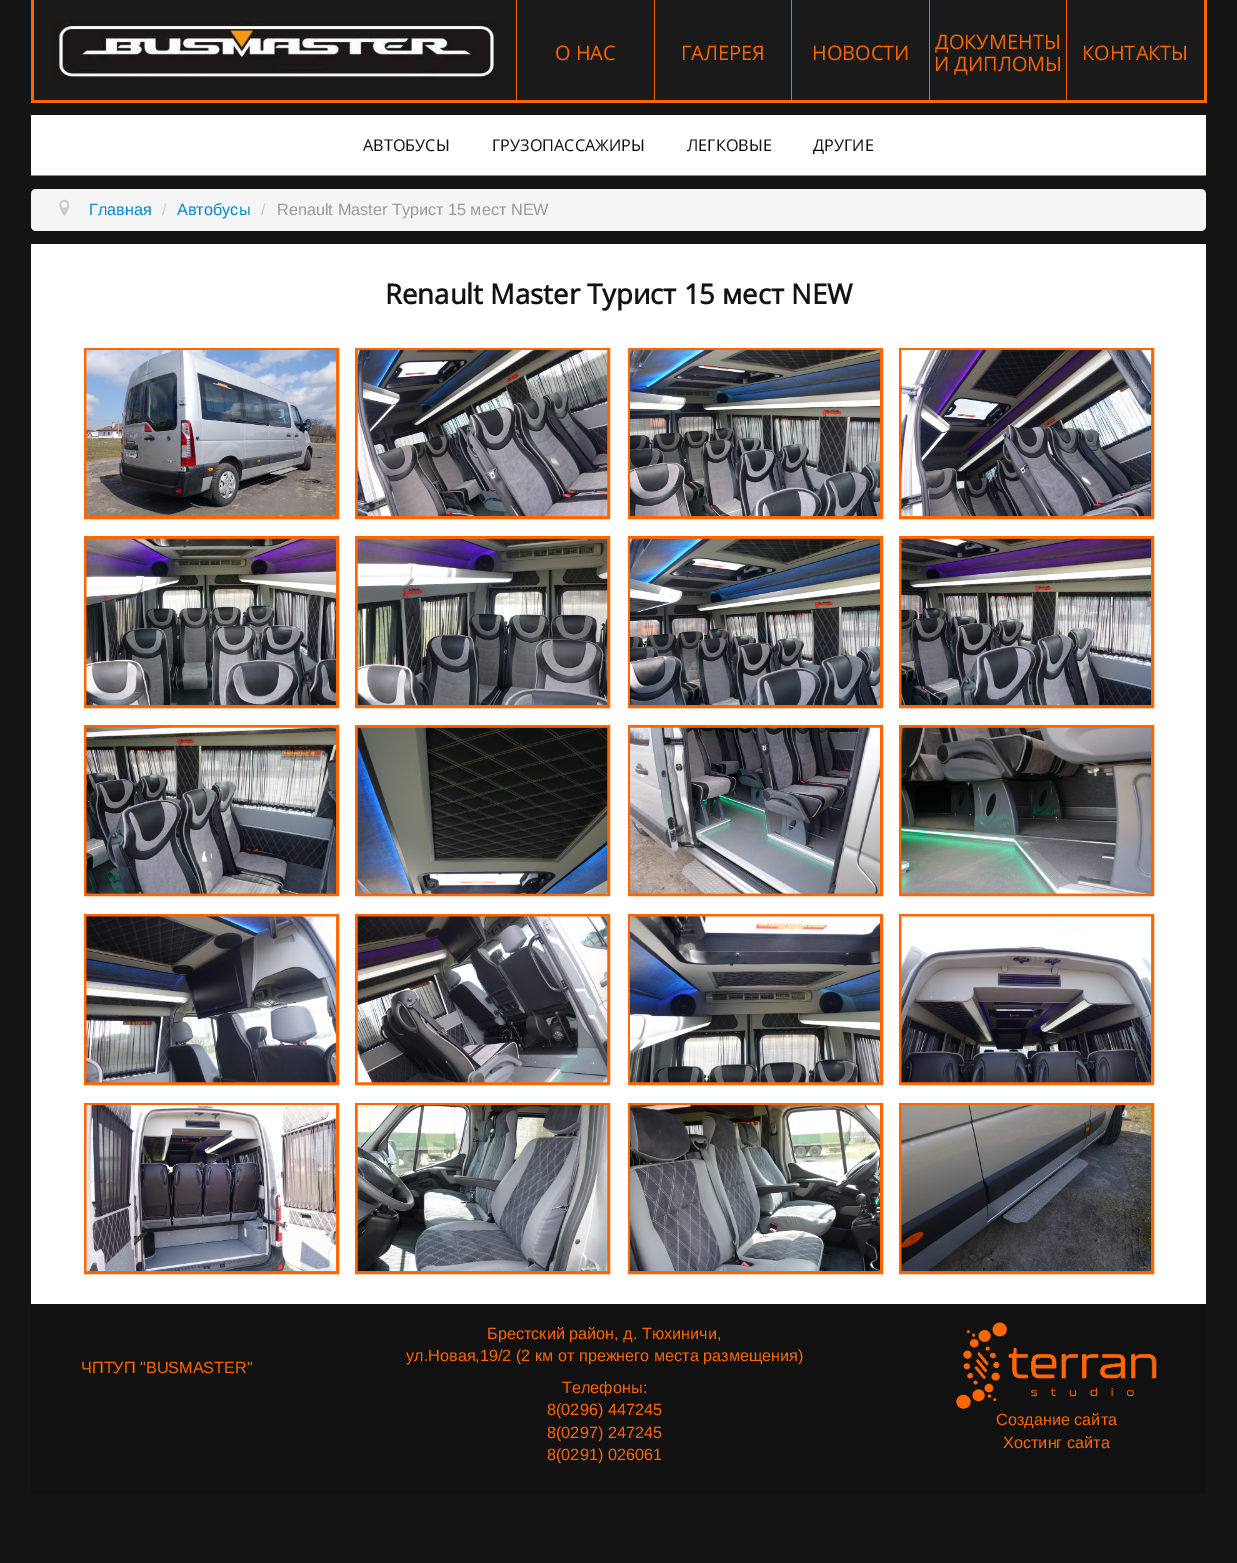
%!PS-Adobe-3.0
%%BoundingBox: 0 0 1237 1563
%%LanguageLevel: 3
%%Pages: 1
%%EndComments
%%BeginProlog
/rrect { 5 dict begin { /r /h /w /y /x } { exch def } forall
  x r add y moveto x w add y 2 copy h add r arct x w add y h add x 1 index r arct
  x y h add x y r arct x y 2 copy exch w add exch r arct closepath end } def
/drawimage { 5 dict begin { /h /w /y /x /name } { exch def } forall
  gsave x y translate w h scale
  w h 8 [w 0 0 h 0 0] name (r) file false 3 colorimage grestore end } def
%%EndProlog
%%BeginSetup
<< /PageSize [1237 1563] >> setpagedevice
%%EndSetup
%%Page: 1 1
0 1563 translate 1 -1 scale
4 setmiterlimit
0.078 setgray
0 0 1237 1563 rectfill
0.102 setgray
34 0 1170 100 rectfill
1 0.4 0 setrgbcolor
1204 0 3 103 rectfill
31 100 1175 3 rectfill
31 0 3 103 rectfill
(images/1.raw) 53 21 441 59 drawimage
516 0 1 100 rectfill
654 0 1 100 rectfill
791 0 1 100 rectfill
929 0 1 100 rectfill
1066 0 1 100 rectfill
1 setgray
31 115 1175 60 rectfill
1 0.4 0 setrgbcolor
31 175 1175 1 rectfill
0.961 setgray
31 189 1175 42 5 rrect fill
(images/2.raw) 59 199 11 17 drawimage
1 setgray
31 244 1175 1060 rectfill
1 0.4 0 setrgbcolor
3 setlinewidth
85.5 349.5 252 168 rectstroke
(images/3.raw) 86 350 251 167 drawimage
356.5 349.5 252 168 rectstroke
(images/4.raw) 357 350 251 167 drawimage
629.5 349.5 252 168 rectstroke
(images/5.raw) 630 350 250 167 drawimage
900.5 349.5 252 168 rectstroke
(images/6.raw) 901 350 251 167 drawimage
85.5 537.5 252 169 rectstroke
(images/7.raw) 86 538 251 167 drawimage
356.5 537.5 252 169 rectstroke
(images/8.raw) 357 538 251 167 drawimage
629.5 537.5 252 169 rectstroke
(images/9.raw) 630 538 250 167 drawimage
900.5 537.5 252 169 rectstroke
(images/10.raw) 901 538 251 167 drawimage
85.5 726.5 252 168 rectstroke
(images/11.raw) 86 727 251 167 drawimage
356.5 726.5 252 168 rectstroke
(images/12.raw) 357 727 251 167 drawimage
629.5 726.5 252 168 rectstroke
(images/13.raw) 630 727 250 167 drawimage
900.5 726.5 252 168 rectstroke
(images/14.raw) 901 727 251 167 drawimage
85.5 915.5 252 168 rectstroke
(images/15.raw) 86 916 251 167 drawimage
356.5 915.5 252 168 rectstroke
(images/16.raw) 357 916 251 167 drawimage
629.5 915.5 252 168 rectstroke
(images/17.raw) 630 916 250 167 drawimage
900.5 915.5 252 168 rectstroke
(images/18.raw) 901 916 251 167 drawimage
85.5 1104.5 252 168 rectstroke
(images/19.raw) 86 1105 251 167 drawimage
356.5 1104.5 252 168 rectstroke
(images/20.raw) 357 1105 251 167 drawimage
629.5 1104.5 252 168 rectstroke
(images/21.raw) 630 1105 250 167 drawimage
900.5 1104.5 252 168 rectstroke
(images/22.raw) 901 1105 251 167 drawimage
0.067 setgray
31 1304 1175 190 rectfill
(images/23.raw) 956 1322 201 87 drawimage
/OpenSans-Regular [20 0 0 -20 0 0] selectfont
1 0.4 0 setrgbcolor
555 60 moveto (О НАС) show
681 60 moveto (ГАЛЕРЕЯ) show
812 60 moveto (НОВОСТИ) show
935 49 moveto (ДОКУМЕНТЫ) show
934 71 moveto (И ДИПЛОМЫ) show
1082 60 moveto (КОНТАКТЫ) show
/OpenSans-Regular [16.25 0 0 -16.25 0 0] selectfont
0.071 setgray
363 151 moveto (АВТОБУСЫ) show
492 151 moveto (ГРУЗОПАССАЖИРЫ) show
687 151 moveto (ЛЕГКОВЫЕ) show
813 151 moveto (ДРУГИЕ) show
/LiberationSans-Regular [16.25 0 0 -16.25 0 0] selectfont
0 0.533 0.8 setrgbcolor
89 215 moveto (Главная) show
0.8 setgray
162 215 moveto (/) show
0 0.533 0.8 setrgbcolor
177 215 moveto (Автобусы) show
0.8 setgray
261 215 moveto (/) show
0.6 setgray
277 215 moveto (Renault Master Турист 15 мест NEW) show
/OpenSans-Bold [27.5 0 0 -27.5 0 0] selectfont
0.071 setgray
385 304 moveto (Renault Master Турист 15 мест NEW) show
/LiberationSans-Regular [16.25 0 0 -16.25 0 0] selectfont
1 0.4 0 setrgbcolor
81 1373 moveto (ЧПТУП "BUSMASTER") show
487 1339 moveto (Брестский район, д. Тюхиничи,) show
406 1361 moveto (ул.Новая,19/2 \(2 км от прежнего места размещения\)) show
562 1393 moveto (Телефоны:) show
547 1415 moveto (8\(0296\) 447245) show
547 1438 moveto (8\(0297\) 247245) show
547 1460 moveto (8\(0291\) 026061) show
996 1425 moveto (Создание сайта) show
1003 1448 moveto (Хостинг сайта) show
showpage
%%EOF
